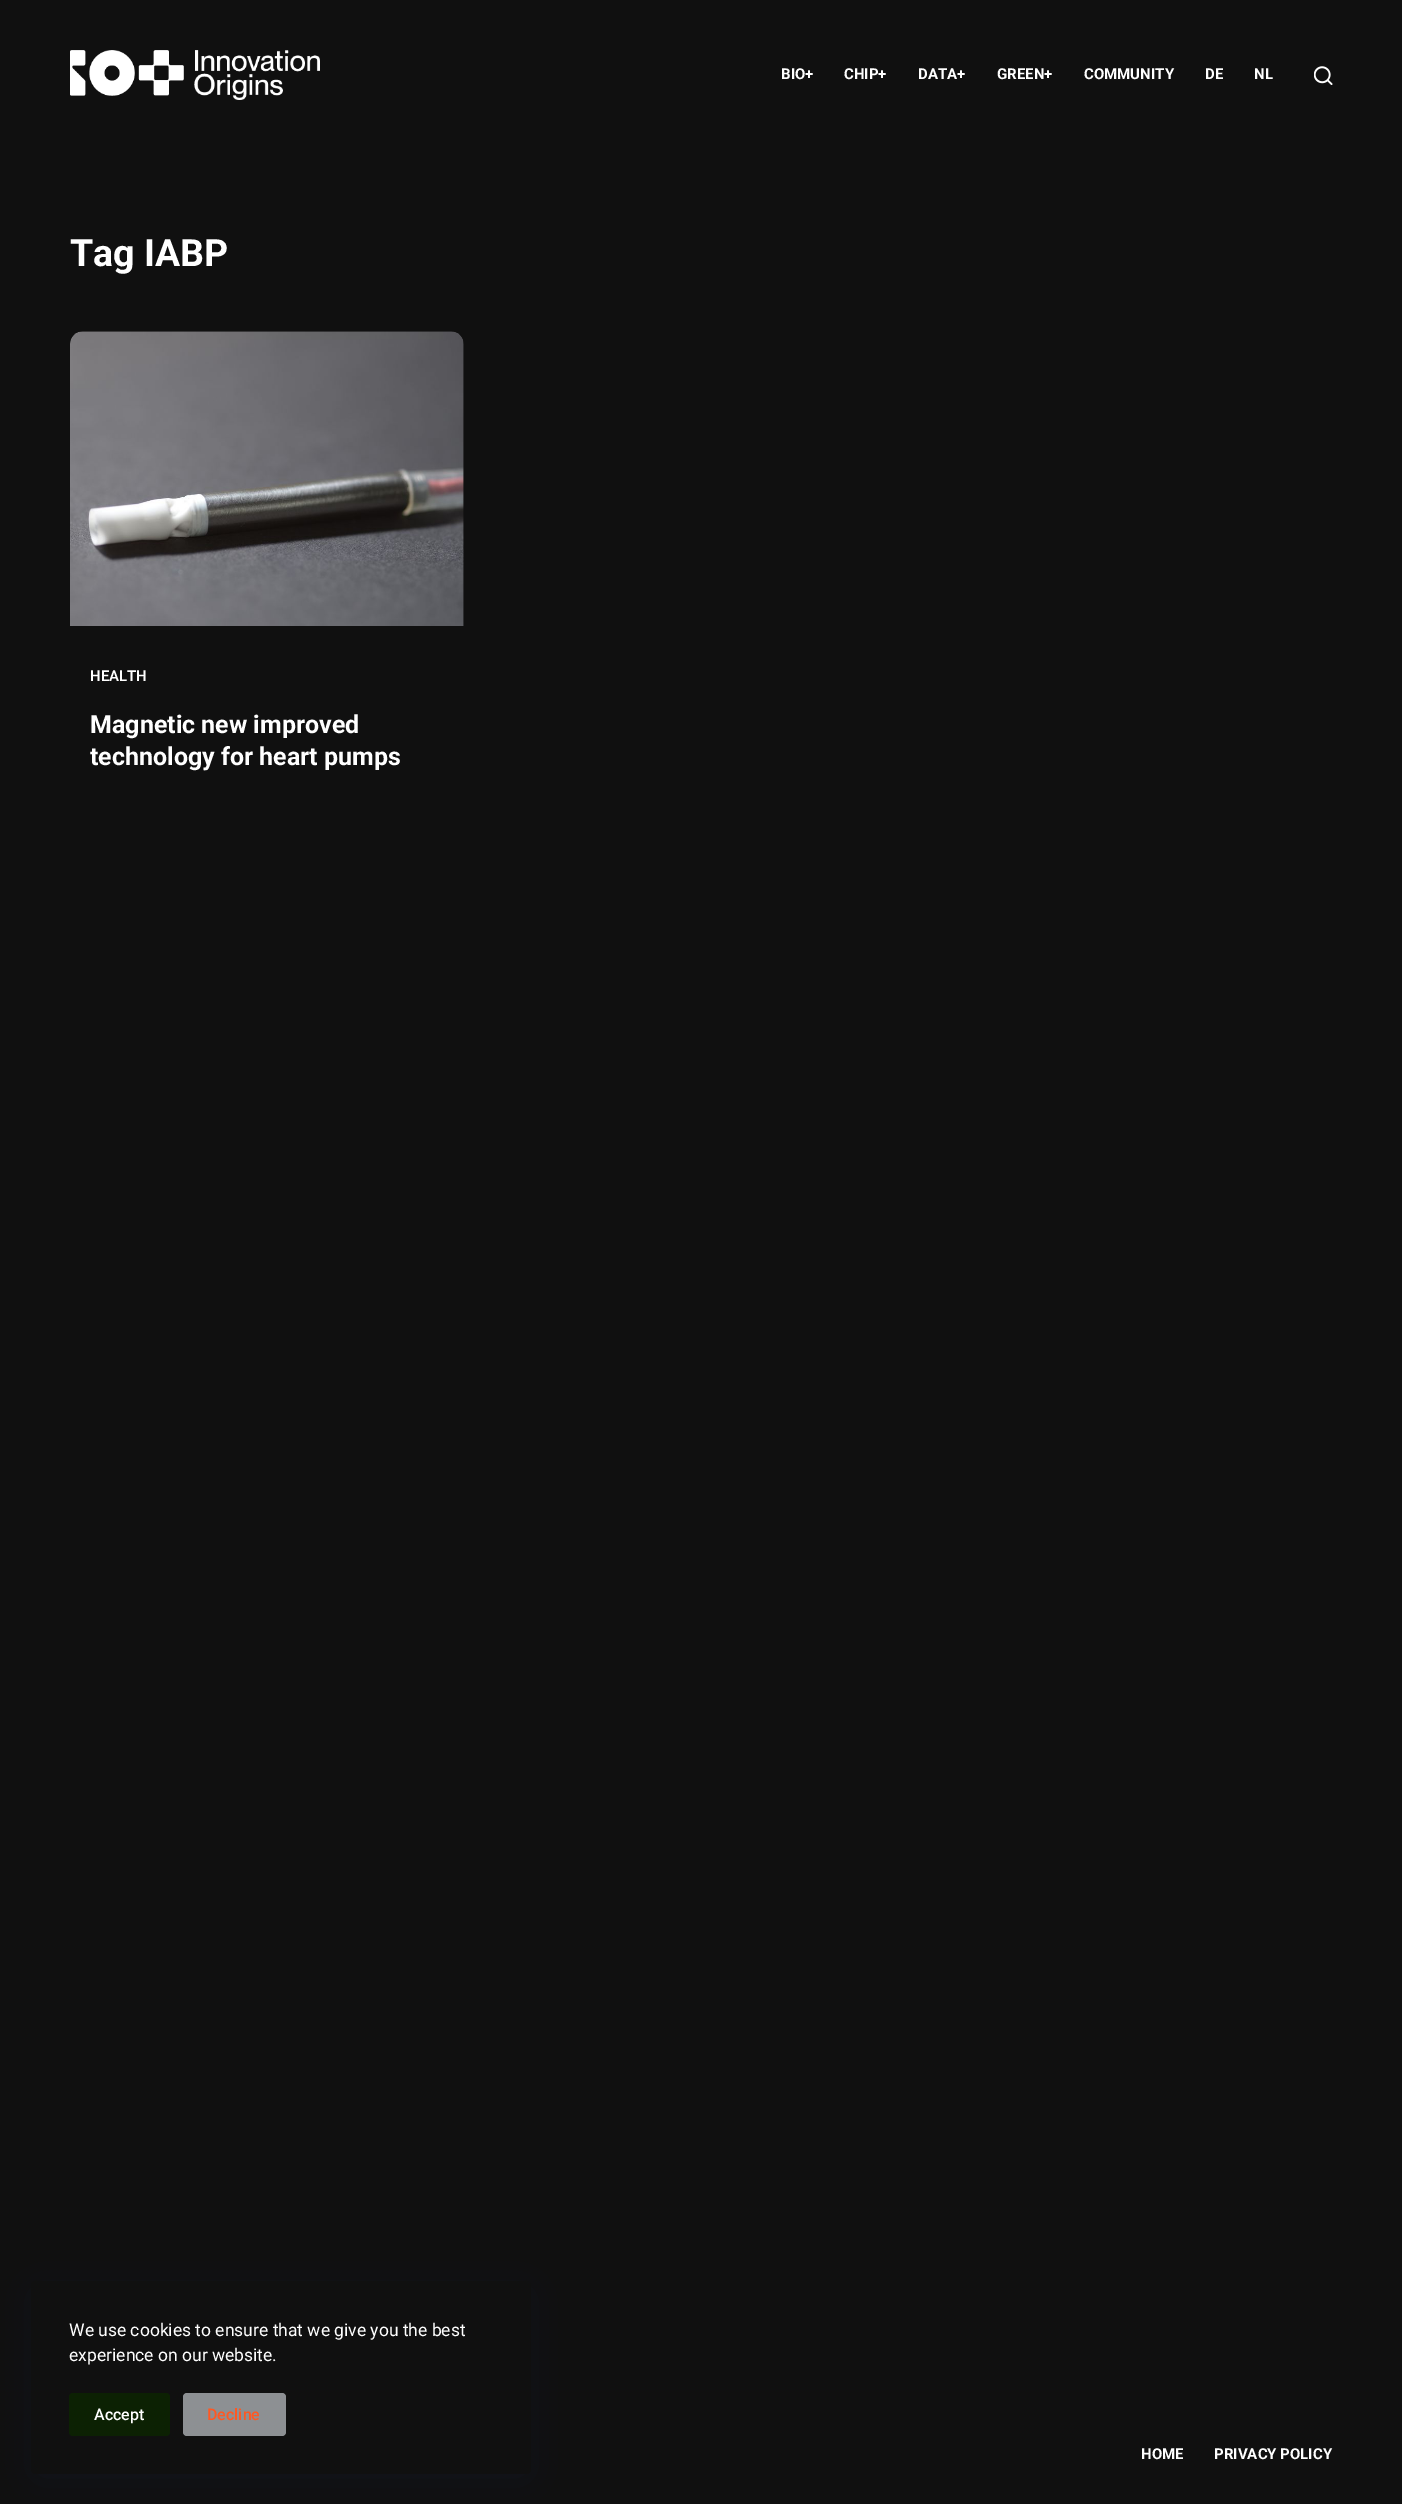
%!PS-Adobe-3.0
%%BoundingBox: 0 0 1402 2504
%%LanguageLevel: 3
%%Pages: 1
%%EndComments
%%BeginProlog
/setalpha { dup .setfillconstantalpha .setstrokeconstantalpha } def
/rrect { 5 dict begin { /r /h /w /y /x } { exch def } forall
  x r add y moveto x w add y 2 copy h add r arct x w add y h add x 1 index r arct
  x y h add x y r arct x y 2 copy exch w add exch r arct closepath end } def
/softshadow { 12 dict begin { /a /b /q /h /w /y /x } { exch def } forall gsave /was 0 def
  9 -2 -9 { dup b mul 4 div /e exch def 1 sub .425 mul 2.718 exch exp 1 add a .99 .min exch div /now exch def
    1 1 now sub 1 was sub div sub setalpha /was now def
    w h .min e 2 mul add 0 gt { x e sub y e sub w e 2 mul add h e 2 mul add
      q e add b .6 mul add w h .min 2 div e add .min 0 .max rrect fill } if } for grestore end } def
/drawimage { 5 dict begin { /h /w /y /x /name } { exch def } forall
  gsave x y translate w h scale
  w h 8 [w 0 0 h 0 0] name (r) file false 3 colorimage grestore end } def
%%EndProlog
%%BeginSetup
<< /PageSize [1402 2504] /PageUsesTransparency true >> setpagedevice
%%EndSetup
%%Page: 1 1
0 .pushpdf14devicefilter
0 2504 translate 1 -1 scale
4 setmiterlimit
0.063 setgray
0 0 1402 2504 rectfill
(images/1.raw) 70 50 250 50 drawimage
(images/2.raw) 1314 66 19 19 drawimage
(images/3.raw) 70 331 394 295 drawimage
0.133 0.22 0.396 setrgbcolor
38 2294 487 180 0 19 0.15 softshadow
0.063 setgray
31 2281 500 193 4 rrect fill
0.047 0.129 0.012 setrgbcolor
69 2393 101 43 4 rrect fill
0.553 0.565 0.576 setrgbcolor
183 2393 103 43 4 rrect fill
/Roboto-Bold [15 0 0 -15 0 0] selectfont
1 setgray
781 79 moveto (BIO+) show
844 79 moveto (CHIP+) show
918 79 moveto (DATA+) show
997 79 moveto (GREEN+) show
1084 79 moveto (COMMUNITY) show
1205 79 moveto (DE) show
1254 79 moveto (NL) show
/Roboto-Bold [37.5 0 0 -37.5 0 0] selectfont
70 266 moveto (Tag IABP) show
/Roboto-SemiBold [15 0 0 -15 0 0] selectfont
90 681 moveto (HEALTH) show
/Roboto-Bold [25 0 0 -25 0 0] selectfont
90 733 moveto (Magnetic new improved) show
90 765 moveto (technology for heart pumps) show
/Roboto-Bold [15 0 0 -15 0 0] selectfont
1141 2459 moveto (HOME) show
1214 2459 moveto (PRIVACY POLICY) show
/Roboto-Regular [17.5 0 0 -17.5 0 0] selectfont
69 2336 moveto (We use cookies to ensure that we give you the best) show
69 2361 moveto (experience on our website.) show
/Roboto-Medium [16 0 0 -16 0 0] selectfont
94 2420 moveto (Accept) show
1 0.345 0.137 setrgbcolor
207 2420 moveto (Decline) show
.poppdf14devicefilter showpage
%%EOF
